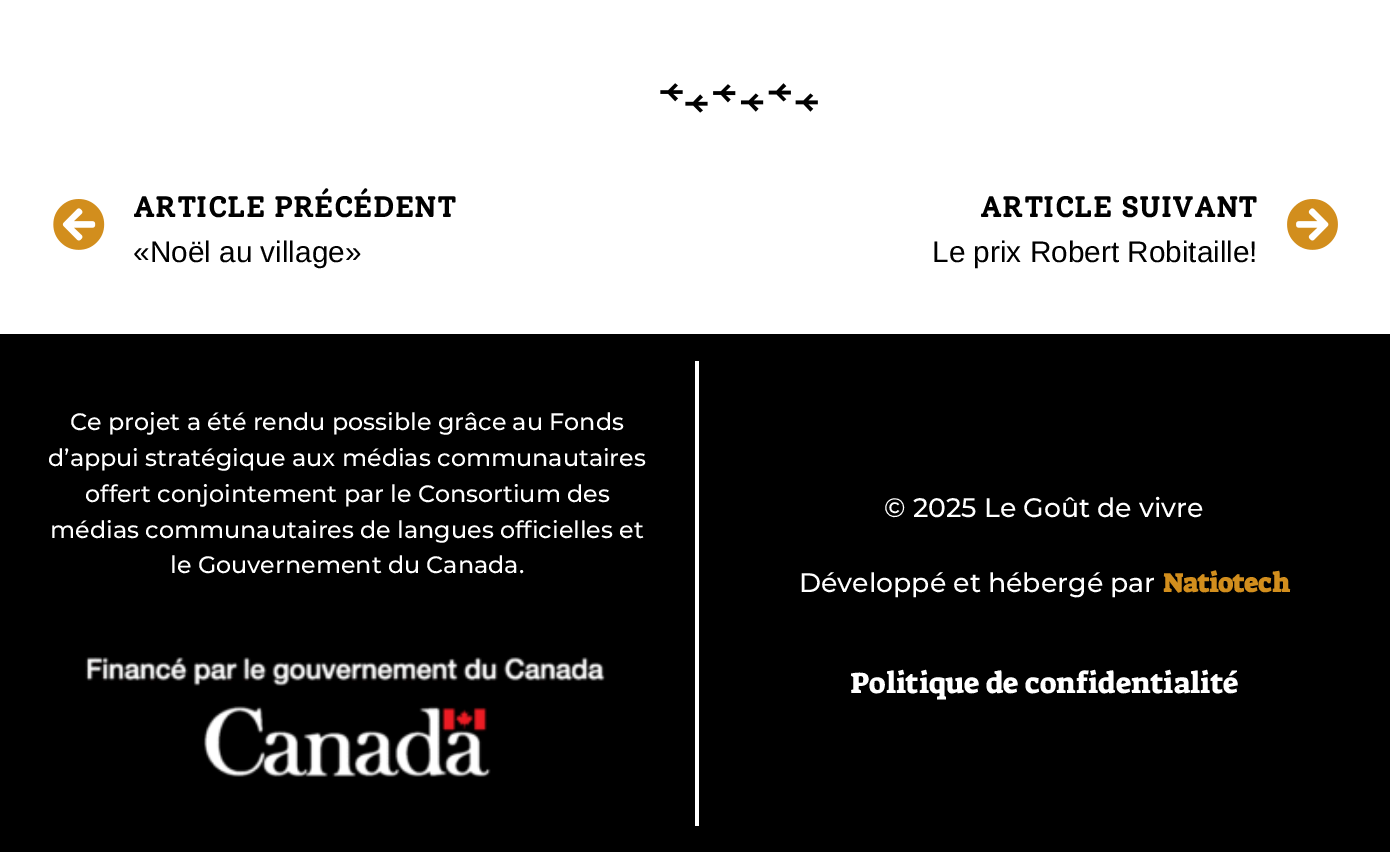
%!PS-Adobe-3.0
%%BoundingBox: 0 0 1390 852
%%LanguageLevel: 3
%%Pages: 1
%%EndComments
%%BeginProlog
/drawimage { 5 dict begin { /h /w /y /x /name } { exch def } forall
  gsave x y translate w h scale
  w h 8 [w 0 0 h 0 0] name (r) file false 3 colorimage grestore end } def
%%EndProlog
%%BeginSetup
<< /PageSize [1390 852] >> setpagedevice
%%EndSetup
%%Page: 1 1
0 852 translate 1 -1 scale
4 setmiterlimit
1 setgray
0 0 1390 852 rectfill
(images/1.raw) 660 83 158 30 drawimage
(images/2.raw) 53 199 52 51 drawimage
(images/3.raw) 1287 199 51 51 drawimage
0 setgray
0 334 1390 518 rectfill
1 setgray
695 361 4 465 rectfill
(images/4.raw) 85 657 521 120 drawimage
/Solway-Bold [29.75 0 0 -29.75 0 0] selectfont
0 setgray
133 217 moveto (ARTICLE PRÉCÉDENT) show
/LiberationSans-Regular [29.75 0 0 -29.75 0 0] selectfont
133 262 moveto («Noël au village») show
/Solway-Bold [29.75 0 0 -29.75 0 0] selectfont
980 217 moveto (ARTICLE SUIVANT) show
/LiberationSans-Regular [29.75 0 0 -29.75 0 0] selectfont
932 262 moveto (Le prix Robert Robitaille!) show
/Montserrat-Medium [23.8 0 0 -23.8 0 0] selectfont
1 setgray
70 430 moveto (Ce projet a été rendu possible grâce au Fonds) show
48 466 moveto (d’appui stratégique aux médias communautaires) show
85 502 moveto (offert conjointement par le Consortium des) show
50 538 moveto (médias communautaires de langues officielles et) show
170 573 moveto (le Gouvernement du Canada.) show
/Montserrat-Medium [26.75 0 0 -26.75 0 0] selectfont
884 517 moveto (© 2025 Le Goût de vivre) show
799 592 moveto (Développé et hébergé par) show
/SuezOne-Bold [26.75 0 0 -26.75 0 0] selectfont
0.824 0.557 0.114 setrgbcolor
1163 592 moveto (Natiotech) show
/SuezOne-Regular [29.75 0 0 -29.75 0 0] selectfont
1 setgray
850 693 moveto (Politique de confidentialité) show
showpage
%%EOF
